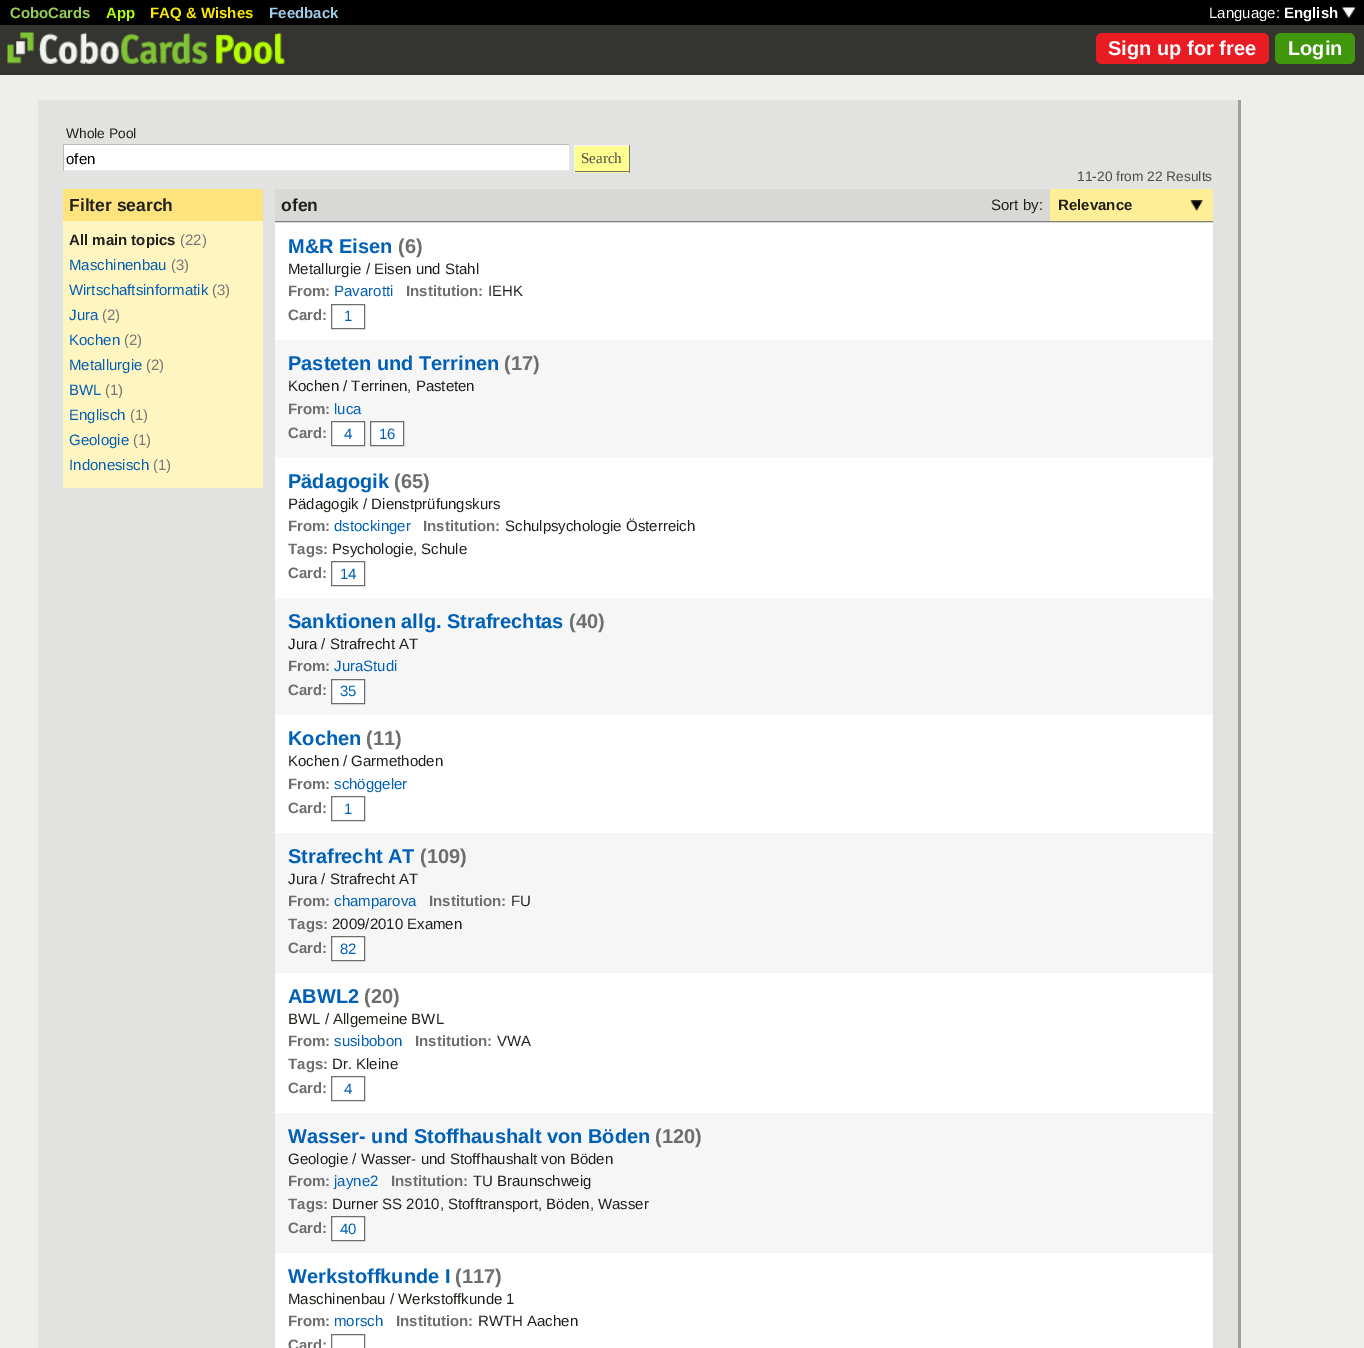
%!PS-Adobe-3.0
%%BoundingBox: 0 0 1364 1348
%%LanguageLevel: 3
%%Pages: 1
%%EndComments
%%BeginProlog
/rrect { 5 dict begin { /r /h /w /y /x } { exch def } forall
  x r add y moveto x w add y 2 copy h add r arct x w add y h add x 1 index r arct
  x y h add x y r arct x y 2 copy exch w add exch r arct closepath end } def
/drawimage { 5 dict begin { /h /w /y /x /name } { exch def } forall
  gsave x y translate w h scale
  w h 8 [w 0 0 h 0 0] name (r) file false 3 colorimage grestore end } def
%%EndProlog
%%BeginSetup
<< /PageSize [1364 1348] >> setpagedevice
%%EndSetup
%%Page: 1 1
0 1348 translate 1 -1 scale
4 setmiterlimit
0.933 0.937 0.922 setrgbcolor
0 0 1364 1348 rectfill
0.204 0.208 0.188 setrgbcolor
0 25 1364 50 rectfill
0 setgray
0 0 1364 25 rectfill
(images/1.raw) 1342 7 13 11 drawimage
(images/2.raw) 7 32 278 32 drawimage
0.914 0.11 0.141 setrgbcolor
1096 33 173 31 6 rrect fill
0.251 0.592 0.043 setrgbcolor
1275 33 80 31 6 rrect fill
0.886 0.89 0.878 setrgbcolor
38 100 1200 1248 rectfill
0.624 setgray
1238 100 3 1248 rectfill
1 setgray
64 145 505 25 rectfill
0.733 0.733 0.729 setrgbcolor
63 144 507 1 rectfill
0.91 0.914 0.906 setrgbcolor
569 144 1 27 rectfill
63 170 507 1 rectfill
0.733 0.733 0.729 setrgbcolor
63 144 1 27 rectfill
1 1 0.565 setrgbcolor
575 146 54 27 rectfill
0.965 setgray
574 145 56 1 rectfill
0.467 0.471 0.463 setrgbcolor
629 145 1 28 rectfill
574 171 56 1 rectfill
0.965 setgray
574 145 1 28 rectfill
1 0.894 0.494 setrgbcolor
63 189 200 32 rectfill
1 0.961 0.757 setrgbcolor
63 221 200 267 rectfill
0.847 0.851 0.843 setrgbcolor
275 189 938 34 rectfill
0.502 0.502 0.498 setrgbcolor
275 221 938 1 rectfill
1 0.933 0.596 setrgbcolor
1050 189 163 32 rectfill
(images/3.raw) 1190 200 13 12 drawimage
1 setgray
275 223 938 117 rectfill
0.427 0.435 0.424 setrgbcolor
331.5 304.5 33 24 rectstroke
0.965 setgray
275 340 938 118 rectfill
1 setgray
newpath 331.5 421.5 moveto 364.5 421.5 lineto 364.5 445.5 lineto 331.5 445.5 lineto closepath gsave fill grestore
0.427 0.435 0.424 setrgbcolor
stroke
1 setgray
newpath 370.5 421.5 moveto 403.5 421.5 lineto 403.5 445.5 lineto 370.5 445.5 lineto closepath gsave fill grestore
0.427 0.435 0.424 setrgbcolor
stroke
1 setgray
275 458 938 140 rectfill
0.427 0.435 0.424 setrgbcolor
331.5 561.5 33 24 rectstroke
0.965 setgray
275 598 938 117 rectfill
1 setgray
newpath 331.5 679.5 moveto 364.5 679.5 lineto 364.5 703.5 lineto 331.5 703.5 lineto closepath gsave fill grestore
0.427 0.435 0.424 setrgbcolor
stroke
1 setgray
275 715 938 118 rectfill
0.427 0.435 0.424 setrgbcolor
331.5 796.5 33 24 rectstroke
0.965 setgray
275 833 938 140 rectfill
1 setgray
newpath 331.5 936.5 moveto 364.5 936.5 lineto 364.5 960.5 lineto 331.5 960.5 lineto closepath gsave fill grestore
0.427 0.435 0.424 setrgbcolor
stroke
1 setgray
275 973 938 140 rectfill
0.427 0.435 0.424 setrgbcolor
331.5 1076.5 33 24 rectstroke
0.965 setgray
275 1113 938 140 rectfill
1 setgray
newpath 331.5 1216.5 moveto 364.5 1216.5 lineto 364.5 1240.5 lineto 331.5 1240.5 lineto closepath gsave fill grestore
0.427 0.435 0.424 setrgbcolor
stroke
1 setgray
275 1253 938 95 rectfill
0.427 0.435 0.424 setrgbcolor
331.5 1334.5 33 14 rectstroke
/LiberationSans-Bold [15 0 0 -15 0 0] selectfont
0.592 0.812 0.345 setrgbcolor
10 18 moveto (CoboCards) show
0.706 1 0 setrgbcolor
106 18 moveto (App) show
0.976 0.91 0 setrgbcolor
150 18 moveto (FAQ & Wishes) show
0.624 0.812 0.906 setrgbcolor
269 18 moveto (Feedback) show
/LiberationSans-Regular [15 0 0 -15 0 0] selectfont
1 setgray
1209 18 moveto (Language:) show
/LiberationSans-Bold [15 0 0 -15 0 0] selectfont
1284 18 moveto (English) show
/LiberationSans-Bold [20 0 0 -20 0 0] selectfont
1108 55 moveto (Sign up for free) show
1288 55 moveto (Login) show
/LiberationSans-Regular [13.75 0 0 -13.75 0 0] selectfont
0.129 0.125 0.11 setrgbcolor
66 138 moveto (Whole Pool) show
/LiberationSans-Regular [15 0 0 -15 0 0] selectfont
0 setgray
66 164 moveto (ofen) show
/LiberationSerif-Regular [15 0 0 -15 0 0] selectfont
0.294 0.298 0.286 setrgbcolor
581 163 moveto (Search) show
/LiberationSans-Bold [17.5 0 0 -17.5 0 0] selectfont
0.129 0.125 0.11 setrgbcolor
69 211 moveto (Filter search) show
/LiberationSans-Bold [15 0 0 -15 0 0] selectfont
69 245 moveto (All main topics) show
/LiberationSans-Regular [15 0 0 -15 0 0] selectfont
0.467 0.471 0.463 setrgbcolor
180 245 moveto (\(22\)) show
0 0.376 0.714 setrgbcolor
69 270 moveto (Maschinenbau) show
0.467 0.471 0.463 setrgbcolor
171 270 moveto (\(3\)) show
0 0.376 0.714 setrgbcolor
69 295 moveto (Wirtschaftsinformatik) show
0.467 0.471 0.463 setrgbcolor
212 295 moveto (\(3\)) show
0 0.376 0.714 setrgbcolor
69 320 moveto (Jura) show
0.467 0.471 0.463 setrgbcolor
102 320 moveto (\(2\)) show
0 0.376 0.714 setrgbcolor
69 345 moveto (Kochen) show
0.467 0.471 0.463 setrgbcolor
124 345 moveto (\(2\)) show
0 0.376 0.714 setrgbcolor
69 370 moveto (Metallurgie) show
0.467 0.471 0.463 setrgbcolor
146 370 moveto (\(2\)) show
0 0.376 0.714 setrgbcolor
69 395 moveto (BWL) show
0.467 0.471 0.463 setrgbcolor
105 395 moveto (\(1\)) show
0 0.376 0.714 setrgbcolor
69 420 moveto (Englisch) show
0.467 0.471 0.463 setrgbcolor
130 420 moveto (\(1\)) show
0 0.376 0.714 setrgbcolor
69 445 moveto (Geologie) show
0.467 0.471 0.463 setrgbcolor
133 445 moveto (\(1\)) show
0 0.376 0.714 setrgbcolor
69 470 moveto (Indonesisch) show
0.467 0.471 0.463 setrgbcolor
153 470 moveto (\(1\)) show
/LiberationSans-Regular [13.75 0 0 -13.75 0 0] selectfont
0.294 0.298 0.286 setrgbcolor
1077 181 moveto (11-20 from 22 Results) show
/LiberationSans-Bold [17.5 0 0 -17.5 0 0] selectfont
0.129 0.125 0.11 setrgbcolor
281 211 moveto (ofen) show
/LiberationSans-Regular [15 0 0 -15 0 0] selectfont
991 210 moveto (Sort by:) show
/LiberationSans-Bold [15 0 0 -15 0 0] selectfont
1058 210 moveto (Relevance) show
/LiberationSans-Bold [20 0 0 -20 0 0] selectfont
0 0.376 0.714 setrgbcolor
288 253 moveto (M&R Eisen) show
0.427 0.435 0.424 setrgbcolor
398 253 moveto (\(6\)) show
/LiberationSans-Regular [15 0 0 -15 0 0] selectfont
0.129 0.125 0.11 setrgbcolor
288 274 moveto (Metallurgie / Eisen und Stahl) show
/LiberationSans-Bold [15 0 0 -15 0 0] selectfont
0.427 0.435 0.424 setrgbcolor
288 296 moveto (From:) show
/LiberationSans-Regular [15 0 0 -15 0 0] selectfont
0 0.376 0.714 setrgbcolor
334 296 moveto (Pavarotti) show
/LiberationSans-Bold [15 0 0 -15 0 0] selectfont
0.427 0.435 0.424 setrgbcolor
406 296 moveto (Institution:) show
/LiberationSans-Regular [15 0 0 -15 0 0] selectfont
0.129 0.125 0.11 setrgbcolor
488 296 moveto (IEHK) show
/LiberationSans-Bold [15 0 0 -15 0 0] selectfont
0.427 0.435 0.424 setrgbcolor
288 320 moveto (Card:) show
/LiberationSans-Regular [15 0 0 -15 0 0] selectfont
0 0.376 0.714 setrgbcolor
344 321 moveto (1) show
/LiberationSans-Bold [20 0 0 -20 0 0] selectfont
288 370 moveto (Pasteten und Terrinen) show
0.427 0.435 0.424 setrgbcolor
504 370 moveto (\(17\)) show
/LiberationSans-Regular [15 0 0 -15 0 0] selectfont
0.129 0.125 0.11 setrgbcolor
288 391 moveto (Kochen / Terrinen, Pasteten) show
/LiberationSans-Bold [15 0 0 -15 0 0] selectfont
0.427 0.435 0.424 setrgbcolor
288 414 moveto (From:) show
/LiberationSans-Regular [15 0 0 -15 0 0] selectfont
0 0.376 0.714 setrgbcolor
334 414 moveto (luca) show
/LiberationSans-Bold [15 0 0 -15 0 0] selectfont
0.427 0.435 0.424 setrgbcolor
288 438 moveto (Card:) show
/LiberationSans-Regular [15 0 0 -15 0 0] selectfont
0 0.376 0.714 setrgbcolor
344 439 moveto (4) show
379 439 moveto (16) show
/LiberationSans-Bold [20 0 0 -20 0 0] selectfont
288 488 moveto (Pädagogik) show
0.427 0.435 0.424 setrgbcolor
394 488 moveto (\(65\)) show
/LiberationSans-Regular [15 0 0 -15 0 0] selectfont
0.129 0.125 0.11 setrgbcolor
288 509 moveto (Pädagogik / Dienstprüfungskurs) show
/LiberationSans-Bold [15 0 0 -15 0 0] selectfont
0.427 0.435 0.424 setrgbcolor
288 531 moveto (From:) show
/LiberationSans-Regular [15 0 0 -15 0 0] selectfont
0 0.376 0.714 setrgbcolor
334 531 moveto (dstockinger) show
/LiberationSans-Bold [15 0 0 -15 0 0] selectfont
0.427 0.435 0.424 setrgbcolor
423 531 moveto (Institution:) show
/LiberationSans-Regular [15 0 0 -15 0 0] selectfont
0.129 0.125 0.11 setrgbcolor
505 531 moveto (Schulpsychologie Österreich) show
/LiberationSans-Bold [15 0 0 -15 0 0] selectfont
0.427 0.435 0.424 setrgbcolor
288 554 moveto (Tags:) show
/LiberationSans-Regular [15 0 0 -15 0 0] selectfont
0.129 0.125 0.11 setrgbcolor
332 554 moveto (Psychologie, Schule) show
/LiberationSans-Bold [15 0 0 -15 0 0] selectfont
0.427 0.435 0.424 setrgbcolor
288 578 moveto (Card:) show
/LiberationSans-Regular [15 0 0 -15 0 0] selectfont
0 0.376 0.714 setrgbcolor
340 579 moveto (14) show
/LiberationSans-Bold [20 0 0 -20 0 0] selectfont
288 628 moveto (Sanktionen allg. Strafrechtas) show
0.427 0.435 0.424 setrgbcolor
569 628 moveto (\(40\)) show
/LiberationSans-Regular [15 0 0 -15 0 0] selectfont
0.129 0.125 0.11 setrgbcolor
288 649 moveto (Jura / Strafrecht AT) show
/LiberationSans-Bold [15 0 0 -15 0 0] selectfont
0.427 0.435 0.424 setrgbcolor
288 671 moveto (From:) show
/LiberationSans-Regular [15 0 0 -15 0 0] selectfont
0 0.376 0.714 setrgbcolor
334 671 moveto (JuraStudi) show
/LiberationSans-Bold [15 0 0 -15 0 0] selectfont
0.427 0.435 0.424 setrgbcolor
288 695 moveto (Card:) show
/LiberationSans-Regular [15 0 0 -15 0 0] selectfont
0 0.376 0.714 setrgbcolor
340 696 moveto (35) show
/LiberationSans-Bold [20 0 0 -20 0 0] selectfont
288 745 moveto (Kochen) show
0.427 0.435 0.424 setrgbcolor
366 745 moveto (\(11\)) show
/LiberationSans-Regular [15 0 0 -15 0 0] selectfont
0.129 0.125 0.11 setrgbcolor
288 766 moveto (Kochen / Garmethoden) show
/LiberationSans-Bold [15 0 0 -15 0 0] selectfont
0.427 0.435 0.424 setrgbcolor
288 789 moveto (From:) show
/LiberationSans-Regular [15 0 0 -15 0 0] selectfont
0 0.376 0.714 setrgbcolor
334 789 moveto (schöggeler) show
/LiberationSans-Bold [15 0 0 -15 0 0] selectfont
0.427 0.435 0.424 setrgbcolor
288 813 moveto (Card:) show
/LiberationSans-Regular [15 0 0 -15 0 0] selectfont
0 0.376 0.714 setrgbcolor
344 814 moveto (1) show
/LiberationSans-Bold [20 0 0 -20 0 0] selectfont
288 863 moveto (Strafrecht AT) show
0.427 0.435 0.424 setrgbcolor
420 863 moveto (\(109\)) show
/LiberationSans-Regular [15 0 0 -15 0 0] selectfont
0.129 0.125 0.11 setrgbcolor
288 884 moveto (Jura / Strafrecht AT) show
/LiberationSans-Bold [15 0 0 -15 0 0] selectfont
0.427 0.435 0.424 setrgbcolor
288 906 moveto (From:) show
/LiberationSans-Regular [15 0 0 -15 0 0] selectfont
0 0.376 0.714 setrgbcolor
334 906 moveto (champarova) show
/LiberationSans-Bold [15 0 0 -15 0 0] selectfont
0.427 0.435 0.424 setrgbcolor
429 906 moveto (Institution:) show
/LiberationSans-Regular [15 0 0 -15 0 0] selectfont
0.129 0.125 0.11 setrgbcolor
511 906 moveto (FU) show
/LiberationSans-Bold [15 0 0 -15 0 0] selectfont
0.427 0.435 0.424 setrgbcolor
288 929 moveto (Tags:) show
/LiberationSans-Regular [15 0 0 -15 0 0] selectfont
0.129 0.125 0.11 setrgbcolor
332 929 moveto (2009/2010 Examen) show
/LiberationSans-Bold [15 0 0 -15 0 0] selectfont
0.427 0.435 0.424 setrgbcolor
288 953 moveto (Card:) show
/LiberationSans-Regular [15 0 0 -15 0 0] selectfont
0 0.376 0.714 setrgbcolor
340 954 moveto (82) show
/LiberationSans-Bold [20 0 0 -20 0 0] selectfont
288 1003 moveto (ABWL2) show
0.427 0.435 0.424 setrgbcolor
364 1003 moveto (\(20\)) show
/LiberationSans-Regular [15 0 0 -15 0 0] selectfont
0.129 0.125 0.11 setrgbcolor
288 1024 moveto (BWL / Allgemeine BWL) show
/LiberationSans-Bold [15 0 0 -15 0 0] selectfont
0.427 0.435 0.424 setrgbcolor
288 1046 moveto (From:) show
/LiberationSans-Regular [15 0 0 -15 0 0] selectfont
0 0.376 0.714 setrgbcolor
334 1046 moveto (susibobon) show
/LiberationSans-Bold [15 0 0 -15 0 0] selectfont
0.427 0.435 0.424 setrgbcolor
415 1046 moveto (Institution:) show
/LiberationSans-Regular [15 0 0 -15 0 0] selectfont
0.129 0.125 0.11 setrgbcolor
497 1046 moveto (VWA) show
/LiberationSans-Bold [15 0 0 -15 0 0] selectfont
0.427 0.435 0.424 setrgbcolor
288 1069 moveto (Tags:) show
/LiberationSans-Regular [15 0 0 -15 0 0] selectfont
0.129 0.125 0.11 setrgbcolor
332 1069 moveto (Dr. Kleine) show
/LiberationSans-Bold [15 0 0 -15 0 0] selectfont
0.427 0.435 0.424 setrgbcolor
288 1093 moveto (Card:) show
/LiberationSans-Regular [15 0 0 -15 0 0] selectfont
0 0.376 0.714 setrgbcolor
344 1094 moveto (4) show
/LiberationSans-Bold [20 0 0 -20 0 0] selectfont
288 1143 moveto (Wasser- und Stoffhaushalt von Böden) show
0.427 0.435 0.424 setrgbcolor
655 1143 moveto (\(120\)) show
/LiberationSans-Regular [15 0 0 -15 0 0] selectfont
0.129 0.125 0.11 setrgbcolor
288 1164 moveto (Geologie / Wasser- und Stoffhaushalt von Böden) show
/LiberationSans-Bold [15 0 0 -15 0 0] selectfont
0.427 0.435 0.424 setrgbcolor
288 1186 moveto (From:) show
/LiberationSans-Regular [15 0 0 -15 0 0] selectfont
0 0.376 0.714 setrgbcolor
334 1186 moveto (jayne2) show
/LiberationSans-Bold [15 0 0 -15 0 0] selectfont
0.427 0.435 0.424 setrgbcolor
391 1186 moveto (Institution:) show
/LiberationSans-Regular [15 0 0 -15 0 0] selectfont
0.129 0.125 0.11 setrgbcolor
473 1186 moveto (TU Braunschweig) show
/LiberationSans-Bold [15 0 0 -15 0 0] selectfont
0.427 0.435 0.424 setrgbcolor
288 1209 moveto (Tags:) show
/LiberationSans-Regular [15 0 0 -15 0 0] selectfont
0.129 0.125 0.11 setrgbcolor
332 1209 moveto (Durner SS 2010, Stofftransport, Böden, Wasser) show
/LiberationSans-Bold [15 0 0 -15 0 0] selectfont
0.427 0.435 0.424 setrgbcolor
288 1233 moveto (Card:) show
/LiberationSans-Regular [15 0 0 -15 0 0] selectfont
0 0.376 0.714 setrgbcolor
340 1234 moveto (40) show
/LiberationSans-Bold [20 0 0 -20 0 0] selectfont
288 1283 moveto (Werkstoffkunde I) show
0.427 0.435 0.424 setrgbcolor
455 1283 moveto (\(117\)) show
/LiberationSans-Regular [15 0 0 -15 0 0] selectfont
0.129 0.125 0.11 setrgbcolor
288 1304 moveto (Maschinenbau / Werkstoffkunde 1) show
/LiberationSans-Bold [15 0 0 -15 0 0] selectfont
0.427 0.435 0.424 setrgbcolor
288 1326 moveto (From:) show
/LiberationSans-Regular [15 0 0 -15 0 0] selectfont
0 0.376 0.714 setrgbcolor
334 1326 moveto (morsch) show
/LiberationSans-Bold [15 0 0 -15 0 0] selectfont
0.427 0.435 0.424 setrgbcolor
396 1326 moveto (Institution:) show
/LiberationSans-Regular [15 0 0 -15 0 0] selectfont
0.129 0.125 0.11 setrgbcolor
478 1326 moveto (RWTH Aachen) show
/LiberationSans-Bold [15 0 0 -15 0 0] selectfont
0.427 0.435 0.424 setrgbcolor
288 1350 moveto (Card:) show
showpage
%%EOF
